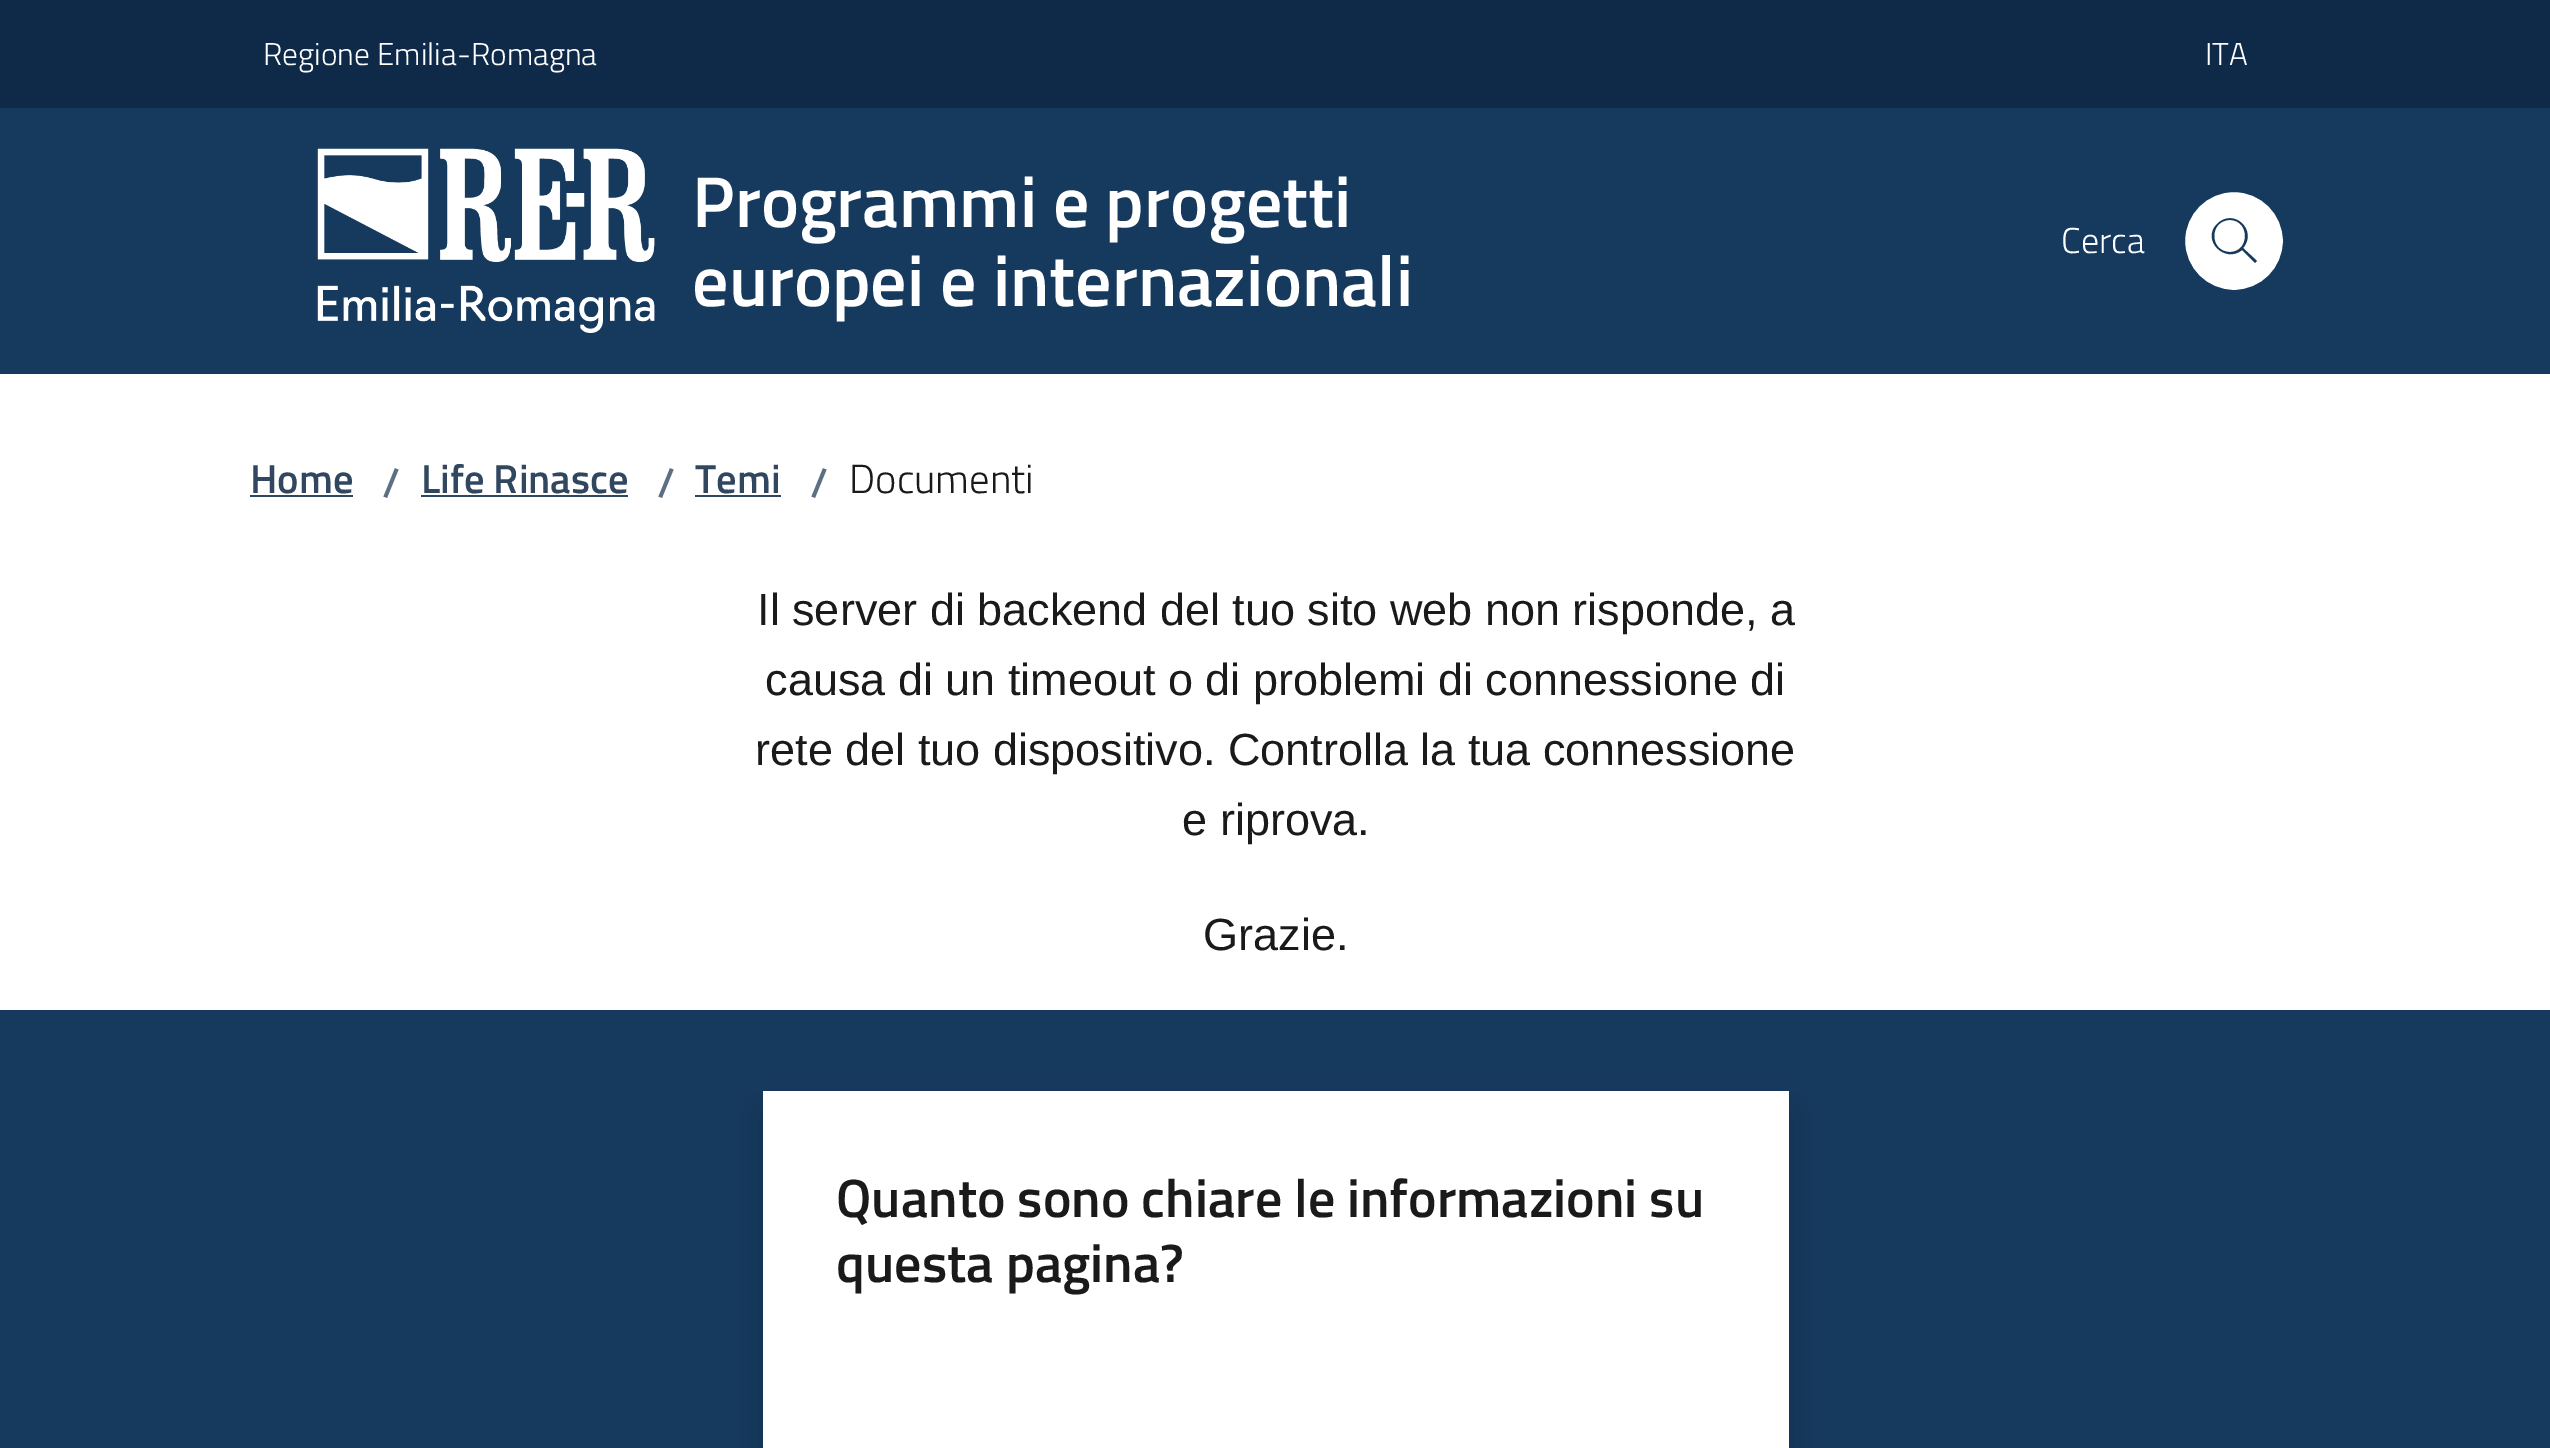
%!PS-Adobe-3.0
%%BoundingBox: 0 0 2550 1448
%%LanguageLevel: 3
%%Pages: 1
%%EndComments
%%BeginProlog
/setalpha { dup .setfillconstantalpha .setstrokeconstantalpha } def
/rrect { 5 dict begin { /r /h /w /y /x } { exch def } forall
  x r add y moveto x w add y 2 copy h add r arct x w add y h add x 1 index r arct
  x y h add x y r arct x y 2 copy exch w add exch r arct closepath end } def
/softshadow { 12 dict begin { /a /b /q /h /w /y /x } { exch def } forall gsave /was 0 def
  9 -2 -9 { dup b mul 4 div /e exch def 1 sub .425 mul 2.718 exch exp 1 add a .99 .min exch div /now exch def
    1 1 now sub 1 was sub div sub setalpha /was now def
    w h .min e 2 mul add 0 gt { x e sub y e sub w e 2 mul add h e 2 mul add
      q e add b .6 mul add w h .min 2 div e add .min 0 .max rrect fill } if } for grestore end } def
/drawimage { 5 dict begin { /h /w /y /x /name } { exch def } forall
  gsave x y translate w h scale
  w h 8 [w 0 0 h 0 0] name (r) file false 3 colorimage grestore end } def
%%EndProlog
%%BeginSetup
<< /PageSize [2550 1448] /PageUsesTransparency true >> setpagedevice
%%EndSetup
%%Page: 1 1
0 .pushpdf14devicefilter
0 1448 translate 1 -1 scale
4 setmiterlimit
1 setgray
0 0 2550 1448 rectfill
0.059 0.165 0.282 setrgbcolor
0 0 2550 108 rectfill
0.086 0.224 0.369 setrgbcolor
0 108 2550 266 rectfill
(images/1.raw) 317 148 338 185 drawimage
1 setgray
newpath 2234 241 51.5 0 360 arc closepath gsave fill grestore
0.086 0.224 0.369 setrgbcolor
5 setlinewidth
stroke
newpath 2257 261 moveto 2243 248 lineto 2258 231 2234 207 2217 224 curveto 2201 240 2225 264 2242 250 curveto 2255 263 lineto closepath 2230 252 moveto 2209 252 2209 220 2230 220 curveto 2250 220 2250 252 2230 252 curveto closepath fill
0.188 0.278 0.373 setrgbcolor
250 495 103 2 rectfill
421 495 207 2 rectfill
695 495 86 2 rectfill
0.086 0.224 0.369 setrgbcolor
0 1010 2550 438 rectfill
0 setgray
763 1112 1026 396 0 20 0.15 softshadow
1 setgray
763 1091 1026 357 rectfill
/TitilliumWeb-Light [31.5 0 0 -31.5 0 0] selectfont
263 65 moveto (Regione Emilia-Romagna) show
2205 65 moveto (ITA) show
/TitilliumWeb-SemiBold [72 0 0 -72 0 0] selectfont
692 227 moveto (Programmi e progetti) show
692 306 moveto (europei e internazionali) show
/TitilliumWeb-Light [36 0 0 -36 0 0] selectfont
2061 253 moveto (Cerca) show
/TitilliumWeb-SemiBold [40.5 0 0 -40.5 0 0] selectfont
0.188 0.278 0.373 setrgbcolor
250 493 moveto (Home) show
0.365 0.439 0.514 setrgbcolor
382 497 moveto (/) show
0.188 0.278 0.373 setrgbcolor
421 493 moveto (Life Rinasce) show
0.365 0.439 0.514 setrgbcolor
657 497 moveto (/) show
0.188 0.278 0.373 setrgbcolor
695 493 moveto (Temi) show
0.365 0.439 0.514 setrgbcolor
810 497 moveto (/) show
/TitilliumWeb-Light [40.5 0 0 -40.5 0 0] selectfont
0.102 setgray
849 493 moveto (Documenti) show
/LiberationSans-Regular [45 0 0 -45 0 0] selectfont
757 625 moveto (Il server di backend del tuo sito web non risponde, a) show
765 695 moveto (causa di un timeout o di problemi di connessione di) show
755 765 moveto (rete del tuo dispositivo. Controlla la tua connessione) show
1182 835 moveto (e riprova.) show
1203 950 moveto (Grazie.) show
/TitilliumWeb-SemiBold [54 0 0 -54 0 0] selectfont
836 1217 moveto (Quanto sono chiare le informazioni su) show
836 1282 moveto (questa pagina?) show
.poppdf14devicefilter showpage
%%EOF
